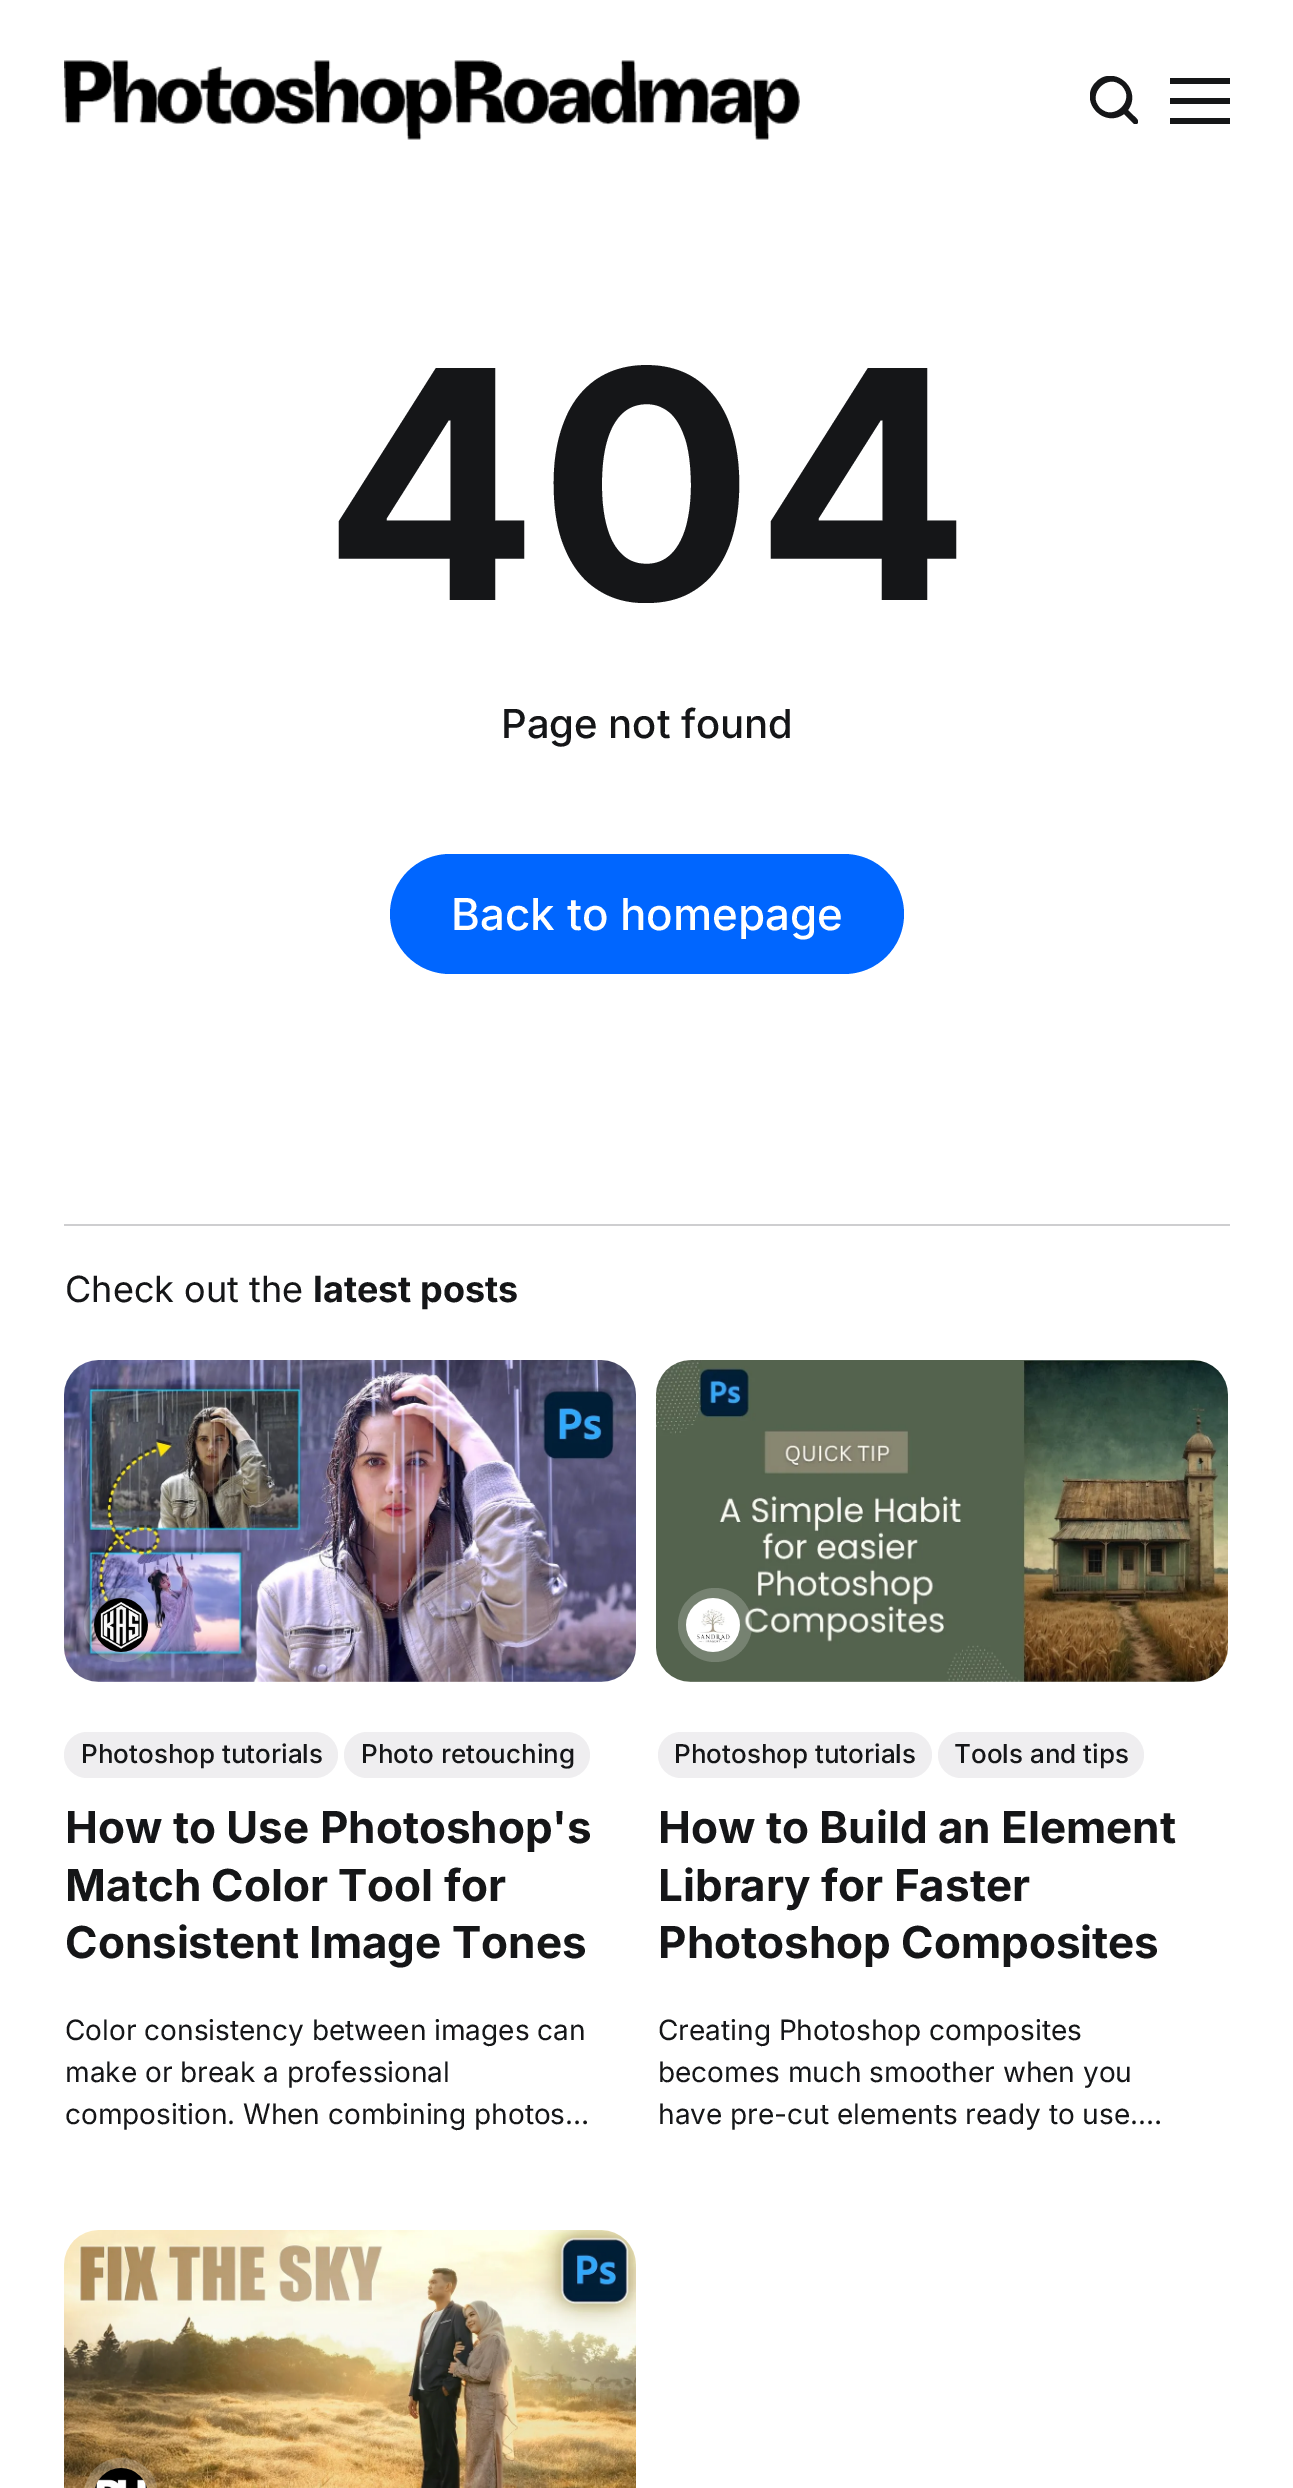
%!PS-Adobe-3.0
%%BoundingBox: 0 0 1293 2488
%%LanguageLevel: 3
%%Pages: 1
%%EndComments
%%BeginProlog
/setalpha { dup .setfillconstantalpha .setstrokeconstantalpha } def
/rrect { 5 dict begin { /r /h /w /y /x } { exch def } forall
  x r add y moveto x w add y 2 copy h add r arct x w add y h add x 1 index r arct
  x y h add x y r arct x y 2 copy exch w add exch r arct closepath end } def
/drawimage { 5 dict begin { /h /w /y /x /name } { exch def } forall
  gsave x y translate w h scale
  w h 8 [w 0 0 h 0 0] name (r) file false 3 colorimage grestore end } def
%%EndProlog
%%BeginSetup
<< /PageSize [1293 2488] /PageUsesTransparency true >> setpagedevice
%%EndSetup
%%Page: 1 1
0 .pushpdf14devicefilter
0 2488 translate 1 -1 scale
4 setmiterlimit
1 setgray
0 0 1293 2488 rectfill
(images/1.raw) 64 60 736 80 drawimage
gsave
1090 76 48 48 rectclip
0.082 0.086 0.094 setrgbcolor
newpath 1124 114 moveto 1134 124 lineto 1135 124 1136 124 1137 124 curveto 1140 121 1136 118 1134 116 curveto 1128 110 lineto 1143 89 1114 64 1096 82 curveto 1078 100 1103 129 1124 114 curveto closepath 1122 86 moveto 1136 100 1114 122 1100 108 curveto 1086 94 1108 72 1122 86 curveto closepath fill
grestore
0.082 0.086 0.094 setrgbcolor
1170 78 60 6 rectfill
1170 98 60 6 rectfill
1170 118 60 6 rectfill
0 0.4 1 setrgbcolor
390 854 514 120 60 rrect fill
0.808 0.808 0.816 setrgbcolor
64 1224 1166 2 rectfill
(images/2.raw) 64 1360 572 322 drawimage
0.2 setalpha
1 setgray
newpath 121 1625 37 0 360 arc closepath fill
1 setalpha
(images/3.raw) 94 1598 54 54 drawimage
0.937 0.933 0.941 setrgbcolor
64 1732 274 46 23 rrect fill
344 1732 246 46 23 rrect fill
(images/4.raw) 656 1360 572 322 drawimage
0.2 setalpha
1 setgray
newpath 715 1625 37 0 360 arc closepath fill
1 setalpha
(images/5.raw) 686 1598 54 54 drawimage
0.937 0.933 0.941 setrgbcolor
658 1732 274 46 23 rrect fill
938 1732 206 46 23 rrect fill
(images/6.raw) 64 2230 572 258 drawimage
0.2 setalpha
1 setgray
84 2458 74 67 37 rrect fill
1 setalpha
(images/7.raw) 95 2468 52 20 drawimage
/Inter-Bold [320 0 0 -320 0 0] selectfont
0.082 0.086 0.094 setrgbcolor
323 600 moveto (404) show
/Inter-Medium [40 0 0 -40 0 0] selectfont
501 738 moveto (Page not found) show
/Inter-Medium [44 0 0 -44 0 0] selectfont
1 setgray
451 930 moveto (Back to homepage) show
/Inter-Regular [36 0 0 -36 0 0] selectfont
0.082 0.086 0.094 setrgbcolor
65 1302 moveto (Check out the) show
/Inter-Bold [36 0 0 -36 0 0] selectfont
313 1302 moveto (latest posts) show
/Inter-Medium [26 0 0 -26 0 0] selectfont
81 1763 moveto (Photoshop tutorials) show
361 1763 moveto (Photo retouching) show
/Inter-Bold [44 0 0 -44 0 0] selectfont
65 1843 moveto (How to Use Photoshop's) show
65 1901 moveto (Match Color Tool for) show
65 1958 moveto (Consistent Image Tones) show
/Inter-Regular [28 0 0 -28 0 0] selectfont
65 2040 moveto (Color consistency between images can) show
65 2082 moveto (make or break a professional) show
65 2124 moveto (composition. When combining photos…) show
/Inter-Medium [26 0 0 -26 0 0] selectfont
674 1763 moveto (Photoshop tutorials) show
954 1763 moveto (Tools and tips) show
/Inter-Bold [44 0 0 -44 0 0] selectfont
658 1843 moveto (How to Build an Element) show
658 1901 moveto (Library for Faster) show
658 1958 moveto (Photoshop Composites) show
/Inter-Regular [28 0 0 -28 0 0] selectfont
658 2040 moveto (Creating Photoshop composites) show
658 2082 moveto (becomes much smoother when you) show
658 2124 moveto (have pre-cut elements ready to use.…) show
.poppdf14devicefilter showpage
%%EOF
